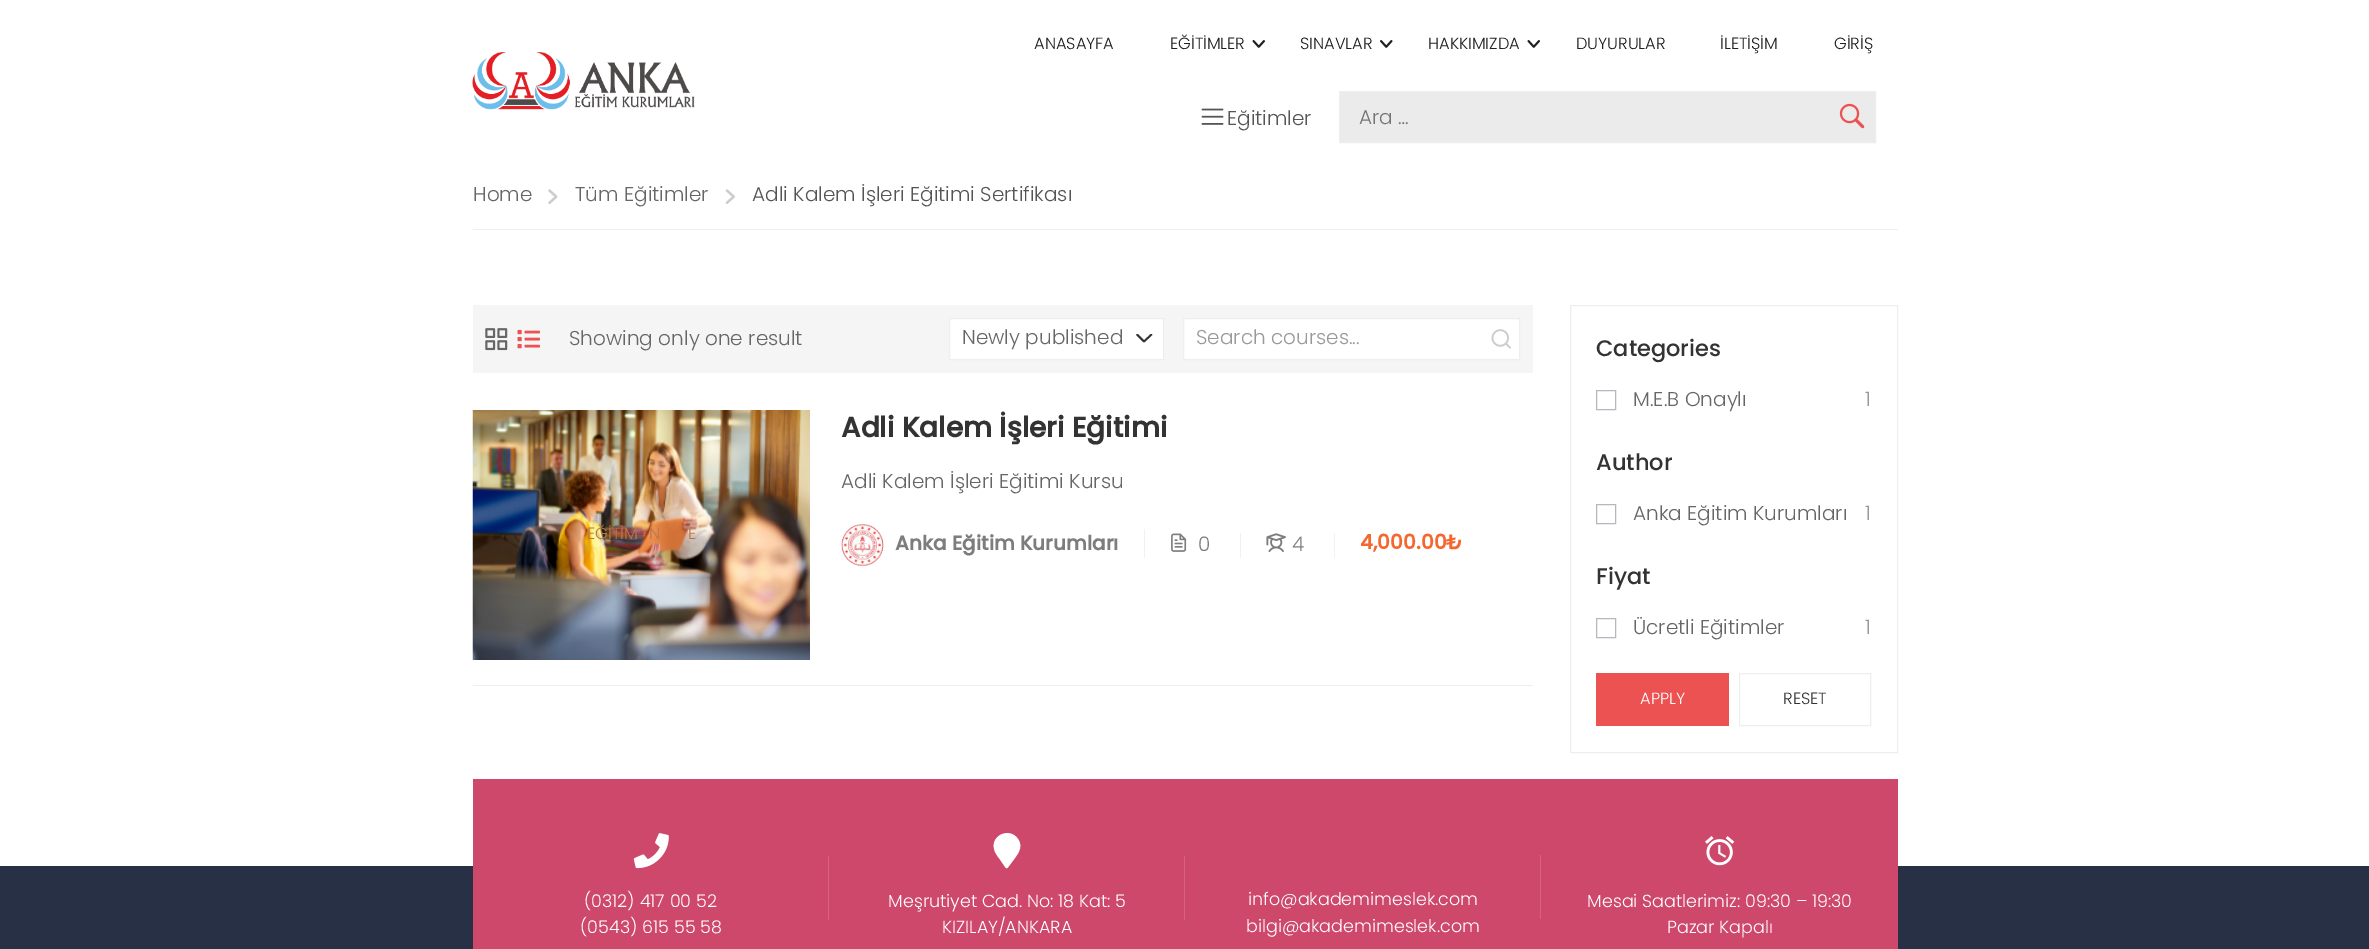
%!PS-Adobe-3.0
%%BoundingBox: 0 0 2369 949
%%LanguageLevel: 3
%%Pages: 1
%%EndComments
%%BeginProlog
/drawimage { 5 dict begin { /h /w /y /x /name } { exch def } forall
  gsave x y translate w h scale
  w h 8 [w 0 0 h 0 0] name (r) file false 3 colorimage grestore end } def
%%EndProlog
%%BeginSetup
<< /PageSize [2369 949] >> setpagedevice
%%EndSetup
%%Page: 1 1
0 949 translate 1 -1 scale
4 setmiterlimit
1 setgray
0 0 2369 949 rectfill
(images/1.raw) 472 52 223 58 drawimage
(images/2.raw) 1252 40 13 8 drawimage
(images/3.raw) 1380 40 13 8 drawimage
(images/2.raw) 1527 40 13 8 drawimage
(images/4.raw) 1201 108 23 17 drawimage
0.922 setgray
newpath 1339.5 91.5 moveto 1875.5 91.5 lineto 1875.5 142.5 lineto 1339.5 142.5 lineto closepath gsave fill grestore
0.933 setgray
stroke
(images/5.raw) 1839 103 26 26 drawimage
473 229 1425 1 rectfill
(images/6.raw) 548 189 10 15 drawimage
(images/7.raw) 725 189 10 15 drawimage
0.961 setgray
473 305 1060 68 rectfill
(images/8.raw) 485 328 23 23 drawimage
(images/9.raw) 517 329 23 20 drawimage
1 setgray
950 319 213 40 rectfill
gsave
1136 334 17 9 rectclip
0.2 setgray
1.8 setlinewidth
1 setlinecap
1 setlinejoin
newpath 1137 334.5 moveto 1144 341.5 lineto 1151.5 334.5 lineto stroke
grestore
0.933 setgray
949.5 318.5 214 41 rectstroke
1 setgray
newpath 1183.5 318.5 moveto 1519.5 318.5 lineto 1519.5 359.5 lineto 1183.5 359.5 lineto closepath gsave fill grestore
0.933 setgray
stroke
(images/10.raw) 1491 329 20 20 drawimage
473 685 1060 1 rectfill
(images/11.raw) 472 410 338 250 drawimage
(images/12.raw) 841 524 43 42 drawimage
0.945 setgray
1144 529 1 29 rectfill
(images/13.raw) 1171 533 16 19 drawimage
1240 533 1 25 rectfill
(images/14.raw) 1266 533 20 19 drawimage
1334 533 1 25 rectfill
0.933 setgray
1570.5 305.5 327 447 rectstroke
0.706 0.725 0.745 setrgbcolor
1596.5 390.5 19 19 rectstroke
1596.5 504.5 19 19 rectstroke
1596.5 618.5 19 19 rectstroke
0.925 0.322 0.322 setrgbcolor
1596 673 133 53 rectfill
0.933 setgray
1739.5 673.5 131 52 rectstroke
0.153 0.188 0.267 setrgbcolor
0 866 2369 83 rectfill
0.804 0.282 0.42 setrgbcolor
473 779 1425 170 rectfill
(images/15.raw) 633 833 36 36 drawimage
0.835 0.388 0.506 setrgbcolor
828 856 1 64 rectfill
1 setgray
newpath 1005.5 867.5 moveto 1000 859.5 lineto 997.5 856 994.5 852.5 994 848.5 curveto 991 835 1010 827 1018 839 curveto 1024 847.5 1017 855 1012 862 curveto 1007.5 868 lineto 1007 868.5 1006 868 1005.5 867.5 curveto closepath fill
0.835 0.388 0.506 setrgbcolor
1184 856 1 64 rectfill
1540 855 1 64 rectfill
(images/16.raw) 1705 836 30 30 drawimage
/Poppins-Light [16.25 0 0 -16.25 0 0] selectfont
0.125 setgray
1034 49 moveto (ANASAYFA) show
1170 49 moveto (EĞİTİMLER) show
1300 49 moveto (SINAVLAR) show
1428 49 moveto (HAKKIMIZDA) show
1576 49 moveto (DUYURULAR) show
1720 49 moveto (İLETİŞİM) show
1834 49 moveto (GİRİŞ) show
/Poppins-Light [20 0 0 -20 0 0] selectfont
0.333 setgray
1227 125 moveto (Eğitimler) show
0.459 setgray
1359 124 moveto (Ara …) show
0.4 setgray
473 201 moveto (Home) show
575 201 moveto (Tüm Eğitimler) show
0.333 setgray
752 201 moveto (Adli Kalem İşleri Eğitimi Sertifikası) show
0.4 setgray
569 345 moveto (Showing only one result) show
962 344 moveto (Newly published) show
0.6 setgray
1196 344 moveto (Search courses...) show
/Poppins-Light [16.25 0 0 -16.25 0 0] selectfont
0.714 0.471 0.29 setrgbcolor
587 539 moveto (EĞİTİM) show
649 539 moveto (N) show
688 539 moveto (E) show
/Poppins-Bold [28 0 0 -28 0 0] selectfont
0.2 setgray
841 437 moveto (Adli Kalem İşleri Eğitimi) show
/Poppins-Light [20 0 0 -20 0 0] selectfont
0.4 setgray
841 488 moveto (Adli Kalem İşleri Eğitimi Kursu) show
/Poppins-Bold [20 0 0 -20 0 0] selectfont
0.49 setgray
895 550 moveto (Anka Eğitim Kurumları) show
/Poppins-Light [20 0 0 -20 0 0] selectfont
1198 551 moveto (0) show
1292 551 moveto (4) show
/Poppins-Bold [20 0 0 -20 0 0] selectfont
0.957 0.404 0.184 setrgbcolor
1360 549 moveto (4,000.00₺) show
/Poppins-Medium [22.5 0 0 -22.5 0 0] selectfont
0.2 setgray
1596 356 moveto (Categories) show
/Poppins-Light [20 0 0 -20 0 0] selectfont
0.4 setgray
1633 406 moveto (M.E.B Onaylı) show
0.6 setgray
1865 406 moveto (1) show
/Poppins-Medium [22.5 0 0 -22.5 0 0] selectfont
0.2 setgray
1596 470 moveto (Author) show
/Poppins-Light [20 0 0 -20 0 0] selectfont
0.4 setgray
1633 520 moveto (Anka Eğitim Kurumları) show
0.6 setgray
1865 520 moveto (1) show
/Poppins-Medium [22.5 0 0 -22.5 0 0] selectfont
0.2 setgray
1596 584 moveto (Fiyat) show
/Poppins-Light [20 0 0 -20 0 0] selectfont
0.4 setgray
1633 634 moveto (Ücretli Eğitimler) show
0.6 setgray
1865 634 moveto (1) show
/Poppins-Light [16.25 0 0 -16.25 0 0] selectfont
1 setgray
1640 704 moveto (APPLY) show
0.2 setgray
1783 704 moveto (RESET) show
/Poppins-Light [17.5 0 0 -17.5 0 0] selectfont
1 setgray
584 907 moveto (\(0312\) 417 00 52) show
580 933 moveto (\(0543\) 615 55 58) show
888 907 moveto (Meşrutiyet Cad. No: 18 Kat: 5) show
942 933 moveto (KIZILAY/ANKARA) show
1248 905 moveto (info@akademimeslek.com) show
1246 932 moveto (bilgi@akademimeslek.com) show
1587 907 moveto (Mesai Saatlerimiz: 09:30 – 19:30) show
1667 933 moveto (Pazar Kapalı) show
showpage
%%EOF
